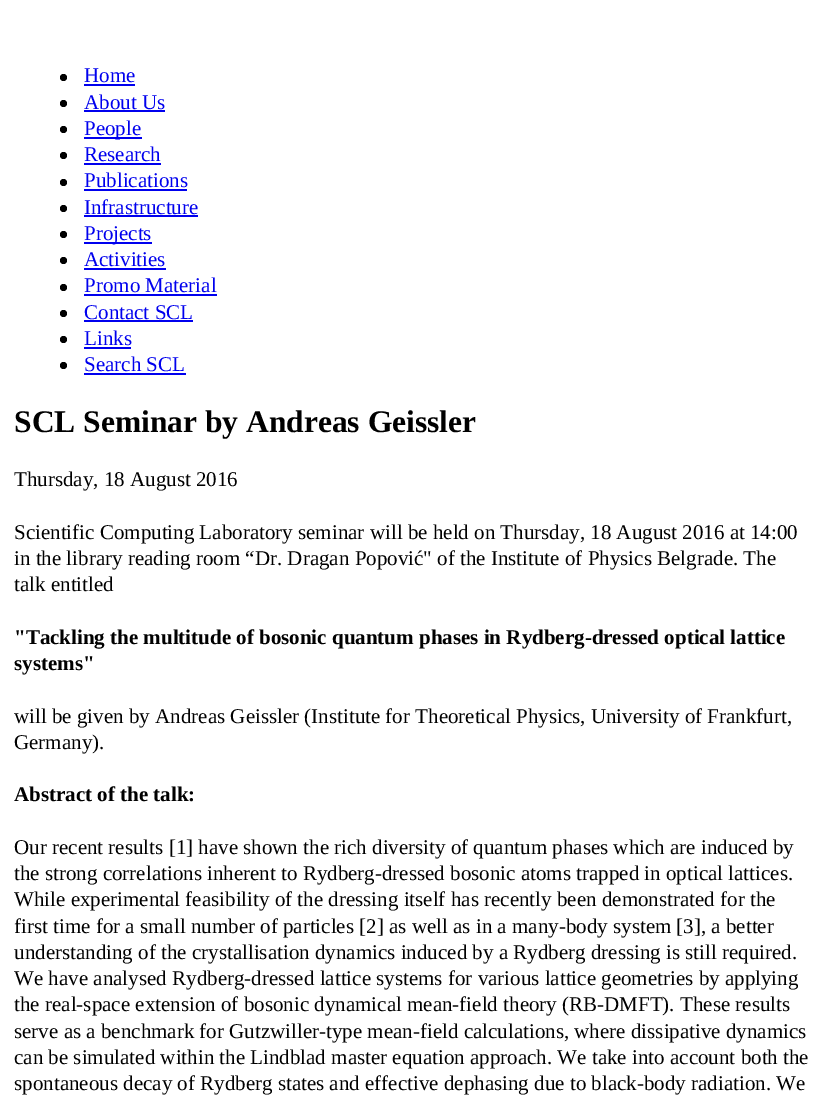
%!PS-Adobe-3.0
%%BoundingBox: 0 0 825 1100
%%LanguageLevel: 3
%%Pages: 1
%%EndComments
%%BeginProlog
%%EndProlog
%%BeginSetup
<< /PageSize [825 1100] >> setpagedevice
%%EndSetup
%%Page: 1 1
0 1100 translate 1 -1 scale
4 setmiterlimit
1 setgray
0 0 825 1100 rectfill
0 setgray
newpath 63.5 77.5 3.5 0 360 arc closepath fill
0 0 0.933 setrgbcolor
84 84 51 2 rectfill
0 setgray
newpath 63.5 103.5 3.5 0 360 arc closepath fill
0 0 0.933 setrgbcolor
84 110 81 2 rectfill
0 setgray
newpath 63.5 129.5 3.5 0 360 arc closepath fill
0 0 0.933 setrgbcolor
84 137 58 2 rectfill
0 setgray
newpath 63.5 155.5 3.5 0 360 arc closepath fill
0 0 0.933 setrgbcolor
84 163 77 2 rectfill
0 setgray
newpath 63.5 182.5 3.5 0 360 arc closepath fill
0 0 0.933 setrgbcolor
84 189 103 2 rectfill
0 setgray
newpath 63.5 208.5 3.5 0 360 arc closepath fill
0 0 0.933 setrgbcolor
84 215 114 2 rectfill
0 setgray
newpath 63.5 234.5 3.5 0 360 arc closepath fill
0 0 0.933 setrgbcolor
84 242 68 2 rectfill
0 setgray
newpath 63.5 260.5 3.5 0 360 arc closepath fill
0 0 0.933 setrgbcolor
84 268 82 2 rectfill
0 setgray
newpath 63.5 287.5 3.5 0 360 arc closepath fill
0 0 0.933 setrgbcolor
84 294 133 2 rectfill
0 setgray
newpath 63.5 313.5 3.5 0 360 arc closepath fill
0 0 0.933 setrgbcolor
84 320 109 2 rectfill
0 setgray
newpath 63.5 339.5 3.5 0 360 arc closepath fill
0 0 0.933 setrgbcolor
84 347 47 2 rectfill
0 setgray
newpath 63.5 365.5 3.5 0 360 arc closepath fill
0 0 0.933 setrgbcolor
84 373 102 2 rectfill
/LiberationSerif-Regular [21 0 0 -21 0 0] selectfont
84 82 moveto (Home) show
84 109 moveto (About Us) show
84 135 moveto (People) show
84 161 moveto (Research) show
84 187 moveto (Publications) show
84 214 moveto (Infrastructure) show
84 240 moveto (Projects) show
84 266 moveto (Activities) show
84 292 moveto (Promo Material) show
84 319 moveto (Contact SCL) show
84 345 moveto (Links) show
84 371 moveto (Search SCL) show
/LiberationSerif-Bold [31.5 0 0 -31.5 0 0] selectfont
0 setgray
14 432 moveto (SCL Seminar by Andreas Geissler) show
/LiberationSerif-Regular [21 0 0 -21 0 0] selectfont
14 486 moveto (Thursday, 18 August 2016) show
14 539 moveto (Scientific Computing Laboratory seminar will be held on Thursday, 18 August 2016 at 14:00) show
14 565 moveto (in the library reading room “Dr. Dragan Popović" of the Institute of Physics Belgrade. The) show
14 591 moveto (talk entitled) show
/LiberationSerif-Bold [21 0 0 -21 0 0] selectfont
14 644 moveto ("Tackling the multitude of bosonic quantum phases in Rydberg-dressed optical lattice) show
14 670 moveto (systems") show
/LiberationSerif-Regular [21 0 0 -21 0 0] selectfont
14 723 moveto (will be given by Andreas Geissler \(Institute for Theoretical Physics, University of Frankfurt,) show
14 749 moveto (Germany\).) show
/LiberationSerif-Bold [21 0 0 -21 0 0] selectfont
14 801 moveto (Abstract of the talk:) show
/LiberationSerif-Regular [21 0 0 -21 0 0] selectfont
14 854 moveto (Our recent results [1] have shown the rich diversity of quantum phases which are induced by) show
14 880 moveto (the strong correlations inherent to Rydberg-dressed bosonic atoms trapped in optical lattices.) show
14 906 moveto (While experimental feasibility of the dressing itself has recently been demonstrated for the) show
14 933 moveto (first time for a small number of particles [2] as well as in a many-body system [3], a better) show
14 959 moveto (understanding of the crystallisation dynamics induced by a Rydberg dressing is still required.) show
14 985 moveto (We have analysed Rydberg-dressed lattice systems for various lattice geometries by applying) show
14 1011 moveto (the real-space extension of bosonic dynamical mean-field theory \(RB-DMFT\). These results) show
14 1038 moveto (serve as a benchmark for Gutzwiller-type mean-field calculations, where dissipative dynamics) show
14 1064 moveto (can be simulated within the Lindblad master equation approach. We take into account both the) show
14 1090 moveto (spontaneous decay of Rydberg states and effective dephasing due to black-body radiation. We) show
showpage
%%EOF
